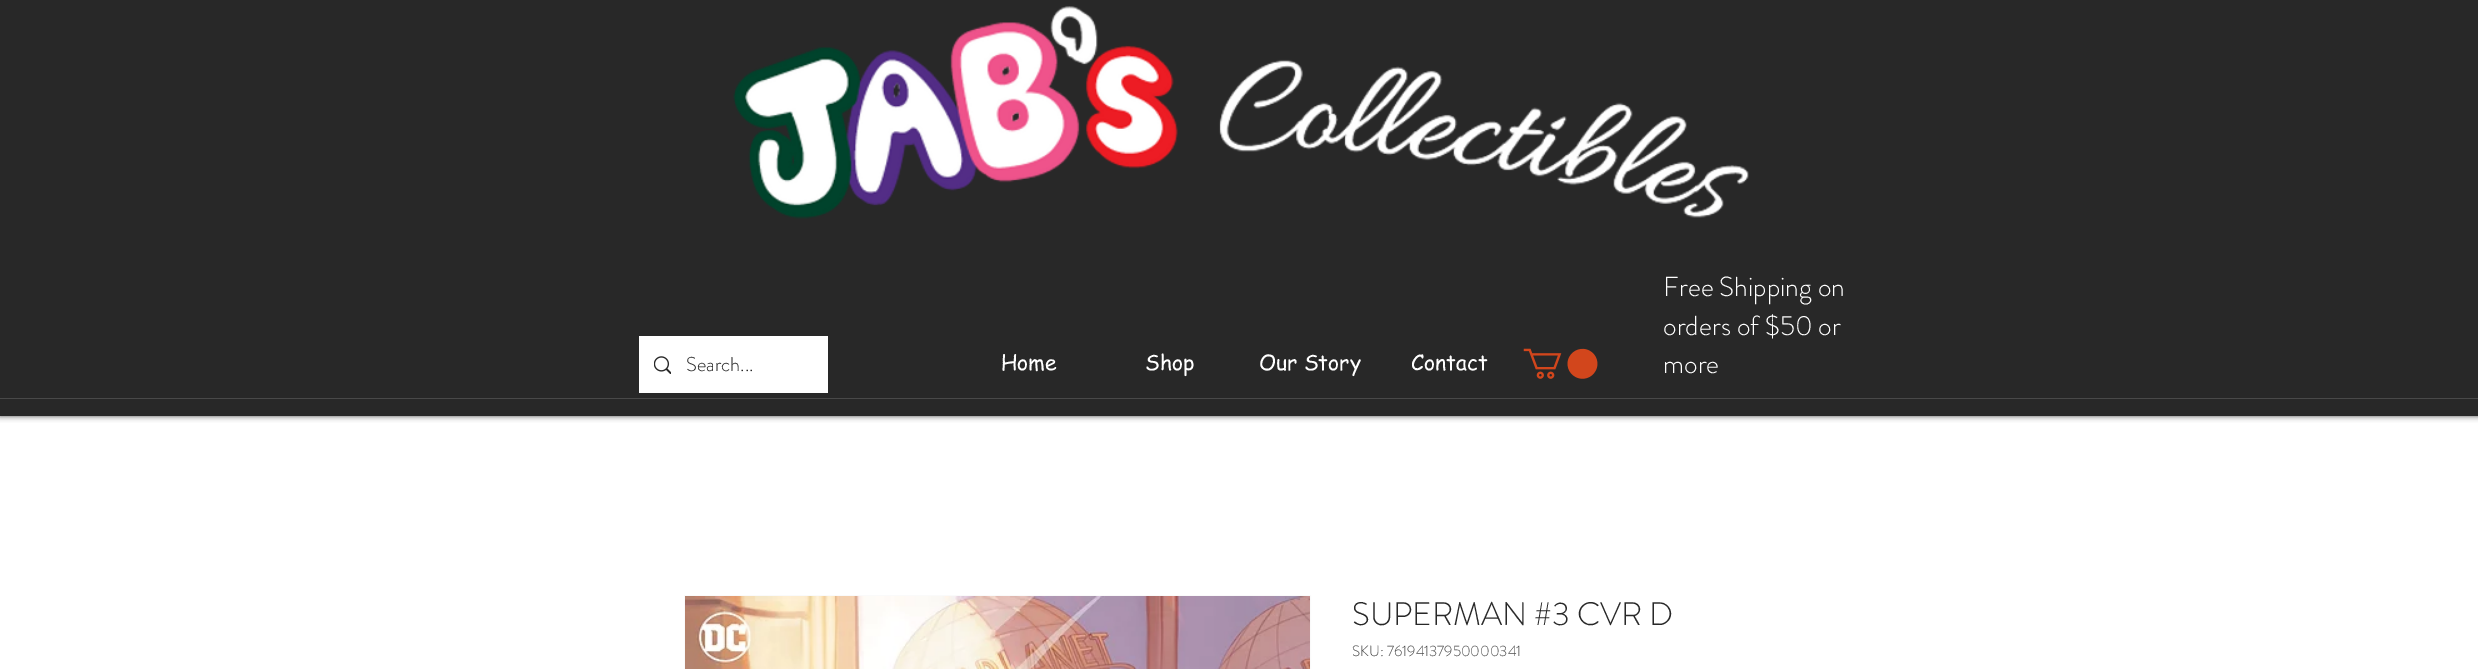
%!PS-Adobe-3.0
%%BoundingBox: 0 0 2478 669
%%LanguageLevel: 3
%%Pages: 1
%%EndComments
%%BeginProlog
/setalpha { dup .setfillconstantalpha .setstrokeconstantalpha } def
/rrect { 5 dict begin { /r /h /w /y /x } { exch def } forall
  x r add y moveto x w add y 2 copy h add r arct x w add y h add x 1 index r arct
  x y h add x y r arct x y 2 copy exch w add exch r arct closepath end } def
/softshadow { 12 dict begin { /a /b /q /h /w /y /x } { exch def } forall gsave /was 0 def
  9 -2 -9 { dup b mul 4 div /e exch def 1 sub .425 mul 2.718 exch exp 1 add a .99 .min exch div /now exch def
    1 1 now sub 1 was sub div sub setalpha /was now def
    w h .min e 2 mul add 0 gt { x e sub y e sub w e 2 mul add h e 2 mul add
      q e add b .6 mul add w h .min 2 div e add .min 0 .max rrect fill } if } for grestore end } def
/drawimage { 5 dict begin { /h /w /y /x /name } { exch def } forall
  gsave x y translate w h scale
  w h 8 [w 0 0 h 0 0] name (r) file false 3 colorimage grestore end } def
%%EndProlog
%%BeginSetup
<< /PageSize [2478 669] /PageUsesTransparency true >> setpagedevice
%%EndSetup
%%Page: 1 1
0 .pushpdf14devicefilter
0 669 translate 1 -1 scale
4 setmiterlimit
1 setgray
0 0 2478 669 rectfill
0 setgray
0 0 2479 416 0 3 0.7 softshadow
0.157 setgray
0 0 2478 416 rectfill
0.286 setgray
0 398 2478 1 rectfill
(images/1.raw) 733 6 1016 213 drawimage
1 setgray
639 336 189 57 rectfill
(images/2.raw) 654 356 17 18 drawimage
(images/3.raw) 1523 348 75 31 drawimage
0.98 setgray
684.5 595.5 626 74 rectstroke
(images/4.raw) 685 596 625 73 drawimage
/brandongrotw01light-Light [20 0 0 -20 0 0] selectfont
0.157 setgray
686 371 moveto (Search...) show
/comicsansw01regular-Regular [21.25 0 0 -21.25 0 0] selectfont
1 setgray
1001 370 moveto (Home) show
1145 370 moveto (Shop) show
1259 370 moveto (Our Story) show
1411 370 moveto (Contact) show
/brandongrotw01light-Light [27.5 0 0 -27.5 0 0] selectfont
1663 296 moveto (Free Shipping on) show
1663 335 moveto (orders of $50 or) show
1663 373 moveto (more) show
/brandongrotw01light-Light [32.5 0 0 -32.5 0 0] selectfont
0.157 setgray
1352 625 moveto (SUPERMAN #3 CVR D) show
/brandongrotw01light-Light [15 0 0 -15 0 0] selectfont
0.286 setgray
1352 656 moveto (SKU: 76194137950000341) show
.poppdf14devicefilter showpage
%%EOF
